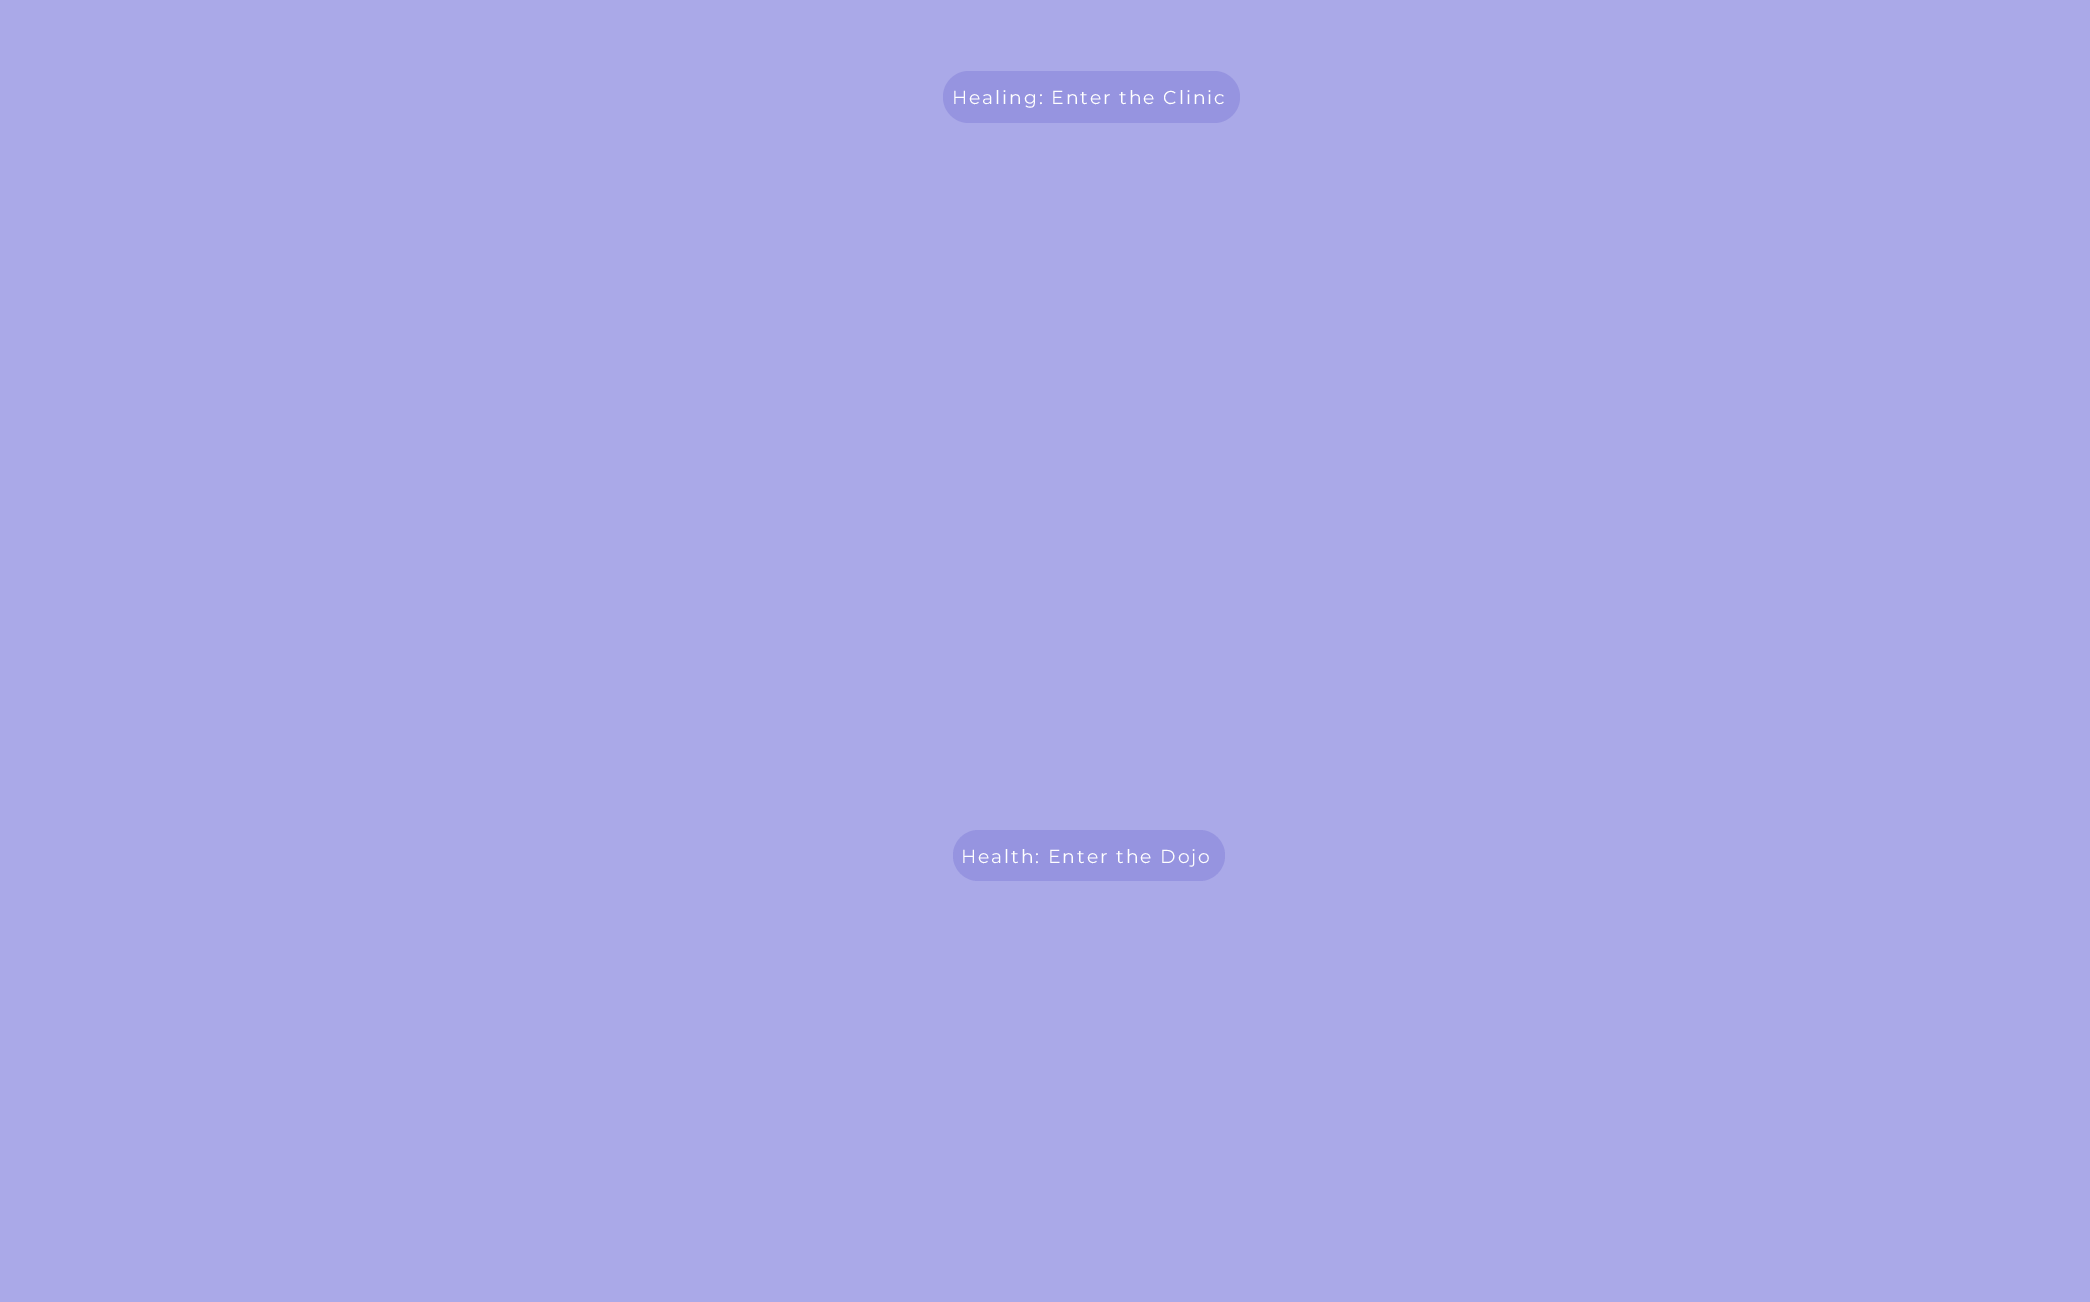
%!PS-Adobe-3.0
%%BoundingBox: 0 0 2090 1302
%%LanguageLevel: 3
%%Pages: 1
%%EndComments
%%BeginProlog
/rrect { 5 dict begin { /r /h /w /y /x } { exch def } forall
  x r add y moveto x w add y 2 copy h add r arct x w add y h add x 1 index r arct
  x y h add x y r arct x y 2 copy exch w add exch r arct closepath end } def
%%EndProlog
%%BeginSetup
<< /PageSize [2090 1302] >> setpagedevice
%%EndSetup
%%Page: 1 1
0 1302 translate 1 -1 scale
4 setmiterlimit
0.667 0.663 0.91 setrgbcolor
0 0 2090 1302 rectfill
0.588 0.58 0.878 setrgbcolor
943 71 297 52 26 rrect fill
953 830 272 51 25.5 rrect fill
/Montserrat-Regular [18.75 0 0 -18.75 0 0] selectfont
1 setgray
952 104 moveto 1.9 0 (Healing: Enter the Clinic) ashow
961 863 moveto 1.9 0 (Health: Enter the Dojo) ashow
showpage
%%EOF
